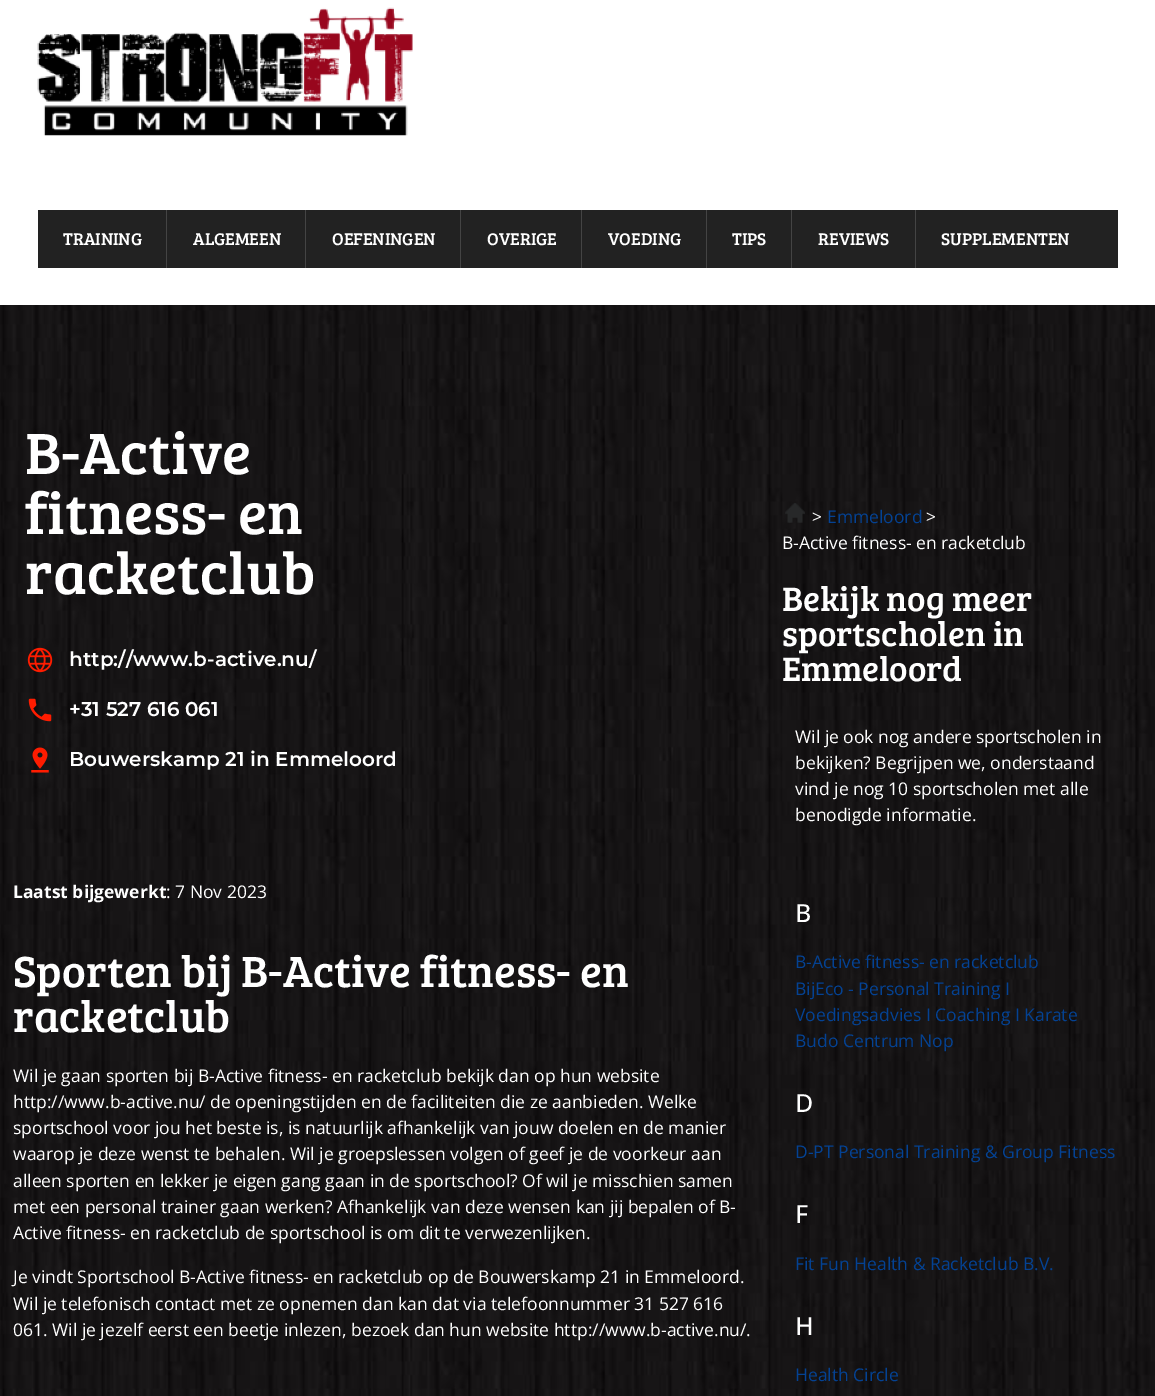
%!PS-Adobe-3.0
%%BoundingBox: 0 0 1155 1396
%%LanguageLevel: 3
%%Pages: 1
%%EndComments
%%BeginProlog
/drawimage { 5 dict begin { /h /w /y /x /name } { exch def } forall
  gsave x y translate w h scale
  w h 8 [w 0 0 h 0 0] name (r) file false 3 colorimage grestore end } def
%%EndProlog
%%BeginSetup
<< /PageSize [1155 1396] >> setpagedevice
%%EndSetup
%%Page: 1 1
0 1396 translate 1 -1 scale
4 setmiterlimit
1 setgray
0 0 1155 1396 rectfill
(images/1.raw) 0 305 1155 1091 drawimage
(images/2.raw) 37 7 376 129 drawimage
0.133 setgray
38 210 1080 58 rectfill
0.267 setgray
166 210 1 58 rectfill
305 210 1 58 rectfill
460 210 1 58 rectfill
581 210 1 58 rectfill
706 210 1 58 rectfill
791 210 1 58 rectfill
915 210 1 58 rectfill
(images/3.raw) 27 647 26 26 drawimage
(images/4.raw) 28 698 24 24 drawimage
(images/5.raw) 31 747 18 26 drawimage
(images/6.raw) 785 503 20 20 drawimage
/BreeSerif-Regular [17.5 0 0 -17.5 0 0] selectfont
1 setgray
63 245 moveto (TRAINING) show
193 245 moveto (ALGEMEEN) show
332 245 moveto (OEFENINGEN) show
487 245 moveto (OVERIGE) show
608 245 moveto (VOEDING) show
732 245 moveto (TIPS) show
818 245 moveto (REVIEWS) show
941 245 moveto (SUPPLEMENTEN) show
/BreeSerif-Regular [60 0 0 -60 0 0] selectfont
25 474 moveto (B-Active) show
25 534 moveto (fitness- en) show
25 594 moveto (racketclub) show
/Montserrat-SemiBold [20 0 0 -20 0 0] selectfont
69 666 moveto (http://www.b-active.nu/) show
69 716 moveto (+31 527 616 061) show
69 766 moveto (Bouwerskamp 21 in Emmeloord) show
/OpenSans-Bold [17.5 0 0 -17.5 0 0] selectfont
13 898 moveto (Laatst bijgewerkt) show
/OpenSans-Regular [17.5 0 0 -17.5 0 0] selectfont
166 898 moveto (: 7 Nov 2023) show
/BreeSerif-Regular [45 0 0 -45 0 0] selectfont
13 987 moveto (Sporten bij B-Active fitness- en) show
13 1032 moveto (racketclub) show
/OpenSans-Regular [17.5 0 0 -17.5 0 0] selectfont
13 1082 moveto (Wil je gaan sporten bij B-Active fitness- en racketclub bekijk dan op hun website) show
13 1108 moveto (http://www.b-active.nu/ de openingstijden en de faciliteiten die ze aanbieden. Welke) show
13 1134 moveto (sportschool voor jou het beste is, is natuurlijk afhankelijk van jouw doelen en de manier) show
13 1160 moveto (waarop je deze wenst te behalen. Wil je groepslessen volgen of geef je de voorkeur aan) show
13 1187 moveto (alleen sporten en lekker je eigen gang gaan in de sportschool? Of wil je misschien samen) show
13 1213 moveto (met een personal trainer gaan werken? Afhankelijk van deze wensen kan jij bepalen of B-) show
13 1239 moveto (Active fitness- en racketclub de sportschool is om dit te verwezenlijken.) show
13 1283 moveto (Je vindt Sportschool B-Active fitness- en racketclub op de Bouwerskamp 21 in Emmeloord.) show
13 1310 moveto (Wil je telefonisch contact met ze opnemen dan kan dat via telefoonnummer 31 527 616) show
13 1336 moveto (061. Wil je jezelf eerst een beetje inlezen, bezoek dan hun website http://www.b-active.nu/.) show
812 523 moveto (>) show
0.016 0.259 0.576 setrgbcolor
827 523 moveto (Emmeloord) show
1 setgray
926 523 moveto (>) show
782 549 moveto (B-Active fitness- en racketclub) show
/BreeSerif-Regular [35 0 0 -35 0 0] selectfont
782 611 moveto (Bekijk nog meer) show
782 646 moveto (sportscholen in) show
782 681 moveto (Emmeloord) show
/OpenSans-Regular [17.5 0 0 -17.5 0 0] selectfont
795 743 moveto (Wil je ook nog andere sportscholen in) show
795 769 moveto (bekijken? Begrijpen we, onderstaand) show
795 795 moveto (vind je nog 10 sportscholen met alle) show
795 821 moveto (benodigde informatie.) show
/OpenSans-Medium [25 0 0 -25 0 0] selectfont
795 922 moveto (B) show
/OpenSans-Regular [17.5 0 0 -17.5 0 0] selectfont
0.016 0.259 0.576 setrgbcolor
795 968 moveto (B-Active fitness- en racketclub) show
795 995 moveto (BijEco - Personal Training I) show
795 1021 moveto (Voedingsadvies I Coaching I Karate) show
795 1047 moveto (Budo Centrum Nop) show
/OpenSans-Medium [25 0 0 -25 0 0] selectfont
1 setgray
795 1112 moveto (D) show
/OpenSans-Regular [17.5 0 0 -17.5 0 0] selectfont
0.016 0.259 0.576 setrgbcolor
795 1158 moveto (D-PT Personal Training & Group Fitness) show
/OpenSans-Medium [25 0 0 -25 0 0] selectfont
1 setgray
795 1223 moveto (F) show
/OpenSans-Regular [17.5 0 0 -17.5 0 0] selectfont
0.016 0.259 0.576 setrgbcolor
795 1270 moveto (Fit Fun Health & Racketclub B.V.) show
/OpenSans-Medium [25 0 0 -25 0 0] selectfont
1 setgray
795 1335 moveto (H) show
/OpenSans-Regular [17.5 0 0 -17.5 0 0] selectfont
0.016 0.259 0.576 setrgbcolor
795 1381 moveto (Health Circle) show
showpage
%%EOF
